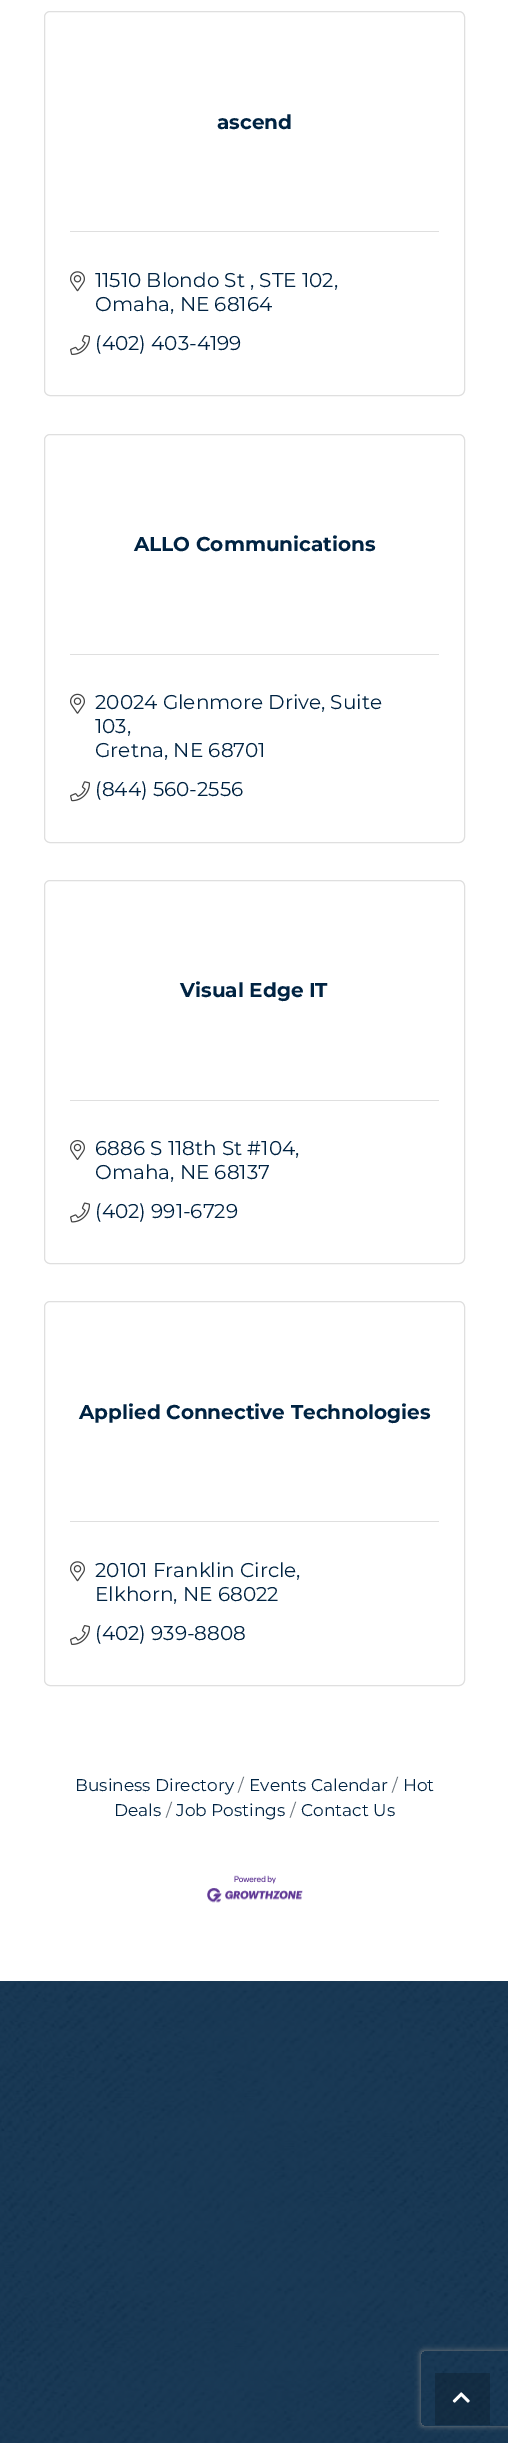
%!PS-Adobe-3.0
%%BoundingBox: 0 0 508 2443
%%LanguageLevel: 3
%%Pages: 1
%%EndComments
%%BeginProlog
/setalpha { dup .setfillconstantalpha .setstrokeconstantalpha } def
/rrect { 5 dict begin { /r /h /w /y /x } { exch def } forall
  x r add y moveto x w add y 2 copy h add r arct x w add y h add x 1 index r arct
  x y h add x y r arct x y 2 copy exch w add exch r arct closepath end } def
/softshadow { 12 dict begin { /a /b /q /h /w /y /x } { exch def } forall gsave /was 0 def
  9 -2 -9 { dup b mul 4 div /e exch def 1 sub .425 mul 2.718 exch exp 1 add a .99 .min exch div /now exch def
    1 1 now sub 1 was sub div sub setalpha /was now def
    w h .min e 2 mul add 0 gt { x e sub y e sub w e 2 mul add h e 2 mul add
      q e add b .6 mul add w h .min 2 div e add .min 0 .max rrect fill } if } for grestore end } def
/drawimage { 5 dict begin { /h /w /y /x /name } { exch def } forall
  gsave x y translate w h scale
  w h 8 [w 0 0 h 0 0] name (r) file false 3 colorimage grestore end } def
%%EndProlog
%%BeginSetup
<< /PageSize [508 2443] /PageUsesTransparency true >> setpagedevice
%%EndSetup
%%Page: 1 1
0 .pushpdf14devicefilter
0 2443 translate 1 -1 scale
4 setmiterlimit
1 setgray
0 0 508 2443 rectfill
0.098 0.224 0.333 setrgbcolor
0 1981 508 1 rectfill
0.875 setgray
44.5 11.5 420 384 5.5 rrect stroke
70 231 369 1 rectfill
(images/1.raw) 70 271 15 21 drawimage
(images/2.raw) 70 335 20 20 drawimage
44.5 434.5 420 408 5.5 rrect stroke
70 654 369 1 rectfill
(images/3.raw) 70 693 15 21 drawimage
(images/4.raw) 70 781 20 21 drawimage
44.5 880.5 420 383 5.5 rrect stroke
70 1100 369 1 rectfill
(images/5.raw) 70 1140 15 20 drawimage
(images/6.raw) 70 1202 20 21 drawimage
44.5 1301.5 420 384 5.5 rrect stroke
70 1521 369 1 rectfill
(images/1.raw) 70 1561 15 21 drawimage
(images/2.raw) 70 1625 20 20 drawimage
(images/7.raw) 207 1875 96 28 drawimage
(images/8.raw) 0 1981 508 462 drawimage
gsave
newpath 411 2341 moveto 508 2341 lineto 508 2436 lineto 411 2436 lineto closepath 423.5 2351 moveto 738.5 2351 lineto 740 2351 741 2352 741 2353.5 curveto 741 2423.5 lineto 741 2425 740 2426 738.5 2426 curveto 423.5 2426 lineto 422 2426 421 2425 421 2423.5 curveto 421 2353.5 lineto 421 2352 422 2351 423.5 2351 curveto closepath eoclip newpath
0.502 setgray
421 2351 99 75 2.5 3 1 softshadow
grestore
0.2 setalpha
0 setgray
435 2373 55 52 rectfill
1 setalpha
(images/9.raw) 452 2392 18 11 drawimage
/Montserrat-Bold [20 0 0 -20 0 0] selectfont
0 0.137 0.259 setrgbcolor
217 129 moveto (ascend) show
/Montserrat-Regular [20 0 0 -20 0 0] selectfont
95 287 moveto (11510 Blondo St , STE 102,) show
95 311 moveto (Omaha, NE 68164) show
95 350 moveto (\(402\) 403-4199) show
/Montserrat-Bold [20 0 0 -20 0 0] selectfont
134 551 moveto (ALLO Communications) show
/Montserrat-Regular [20 0 0 -20 0 0] selectfont
95 709 moveto (20024 Glenmore Drive, Suite) show
95 733 moveto (103,) show
95 757 moveto (Gretna, NE 68701) show
95 796 moveto (\(844\) 560-2556) show
/Montserrat-Bold [20 0 0 -20 0 0] selectfont
180 997 moveto (Visual Edge IT) show
/Montserrat-Regular [20 0 0 -20 0 0] selectfont
95 1155 moveto (6886 S 118th St #104,) show
95 1179 moveto (Omaha, NE 68137) show
95 1218 moveto (\(402\) 991-6729) show
/Montserrat-Bold [20 0 0 -20 0 0] selectfont
79 1419 moveto (Applied Connective Technologies) show
/Montserrat-Regular [20 0 0 -20 0 0] selectfont
95 1577 moveto (20101 Franklin Circle,) show
95 1601 moveto (Elkhorn, NE 68022) show
95 1640 moveto (\(402\) 939-8808) show
/Montserrat-Regular [17 0 0 -17 0 0] selectfont
0.424 0.459 0.49 setrgbcolor
392 1791 moveto (/) show
0 0.137 0.259 setrgbcolor
403 1791 moveto (Hot) show
114 1816 moveto (Deals) show
75 1791 moveto (Business Directory) show
0.424 0.459 0.49 setrgbcolor
238 1791 moveto (/) show
0 0.137 0.259 setrgbcolor
249 1791 moveto (Events Calendar) show
0.424 0.459 0.49 setrgbcolor
166 1816 moveto (/) show
0 0.137 0.259 setrgbcolor
176 1816 moveto (Job Postings) show
0.424 0.459 0.49 setrgbcolor
290 1816 moveto (/) show
0 0.137 0.259 setrgbcolor
301 1816 moveto (Contact Us) show
.poppdf14devicefilter showpage
%%EOF
